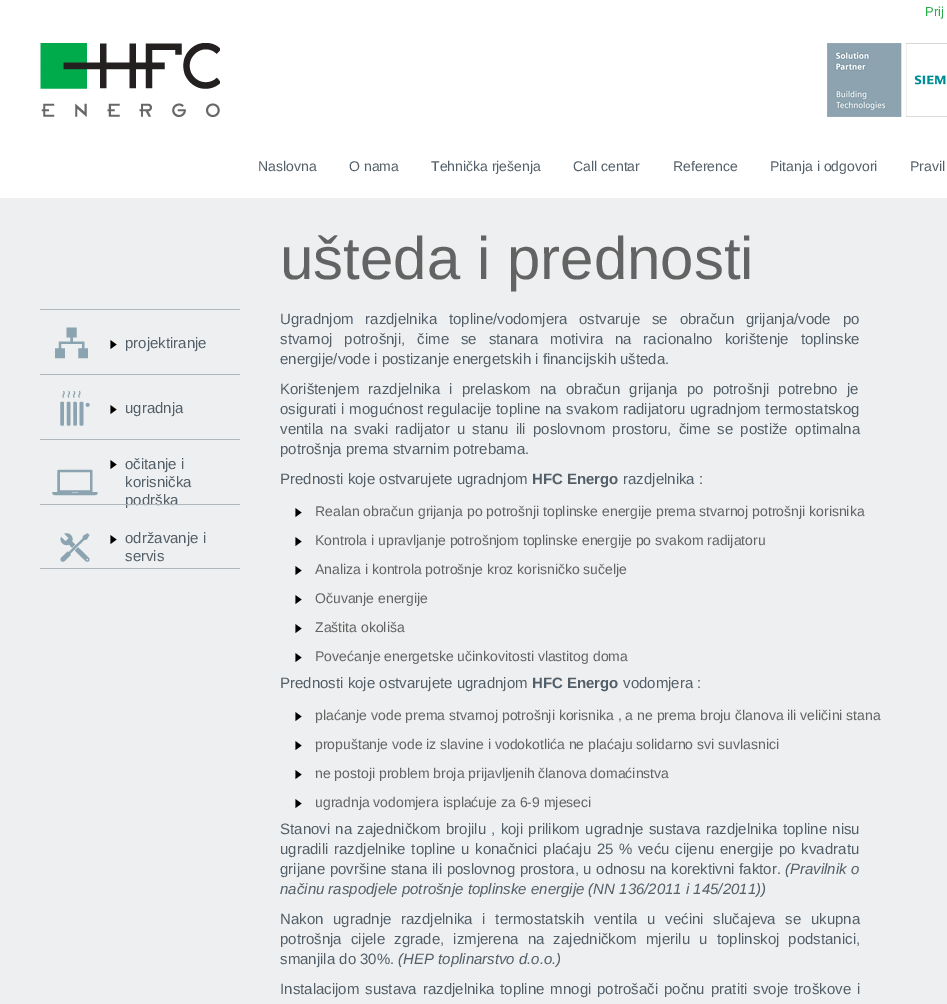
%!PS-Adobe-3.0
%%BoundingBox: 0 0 947 1004
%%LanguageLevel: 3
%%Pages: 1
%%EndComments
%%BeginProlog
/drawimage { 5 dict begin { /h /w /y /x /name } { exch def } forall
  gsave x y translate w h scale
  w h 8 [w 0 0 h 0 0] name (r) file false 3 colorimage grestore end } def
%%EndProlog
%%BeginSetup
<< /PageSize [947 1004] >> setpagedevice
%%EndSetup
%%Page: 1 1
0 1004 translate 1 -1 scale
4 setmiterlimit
0.933 0.937 0.941 setrgbcolor
0 0 947 1004 rectfill
1 setgray
0 0 947 198 rectfill
(images/1.raw) 40 43 180 74 drawimage
(images/2.raw) 827 43 120 74 drawimage
(images/3.raw) 110 340 7 9 drawimage
0.686 0.714 0.737 setrgbcolor
40 309 200 1 rectfill
(images/4.raw) 55 327 33 32 drawimage
(images/3.raw) 110 405 7 9 drawimage
40 374 200 1 rectfill
(images/5.raw) 60 391 30 35 drawimage
(images/3.raw) 110 460 7 9 drawimage
40 439 200 1 rectfill
(images/6.raw) 52 469 46 27 drawimage
(images/3.raw) 110 535 7 9 drawimage
40 568 200 1 rectfill
(images/7.raw) 60 533 30 29 drawimage
(images/3.raw) 295 508 7 9 drawimage
(images/3.raw) 295 537 7 9 drawimage
(images/3.raw) 295 566 7 9 drawimage
(images/3.raw) 295 595 7 9 drawimage
(images/3.raw) 295 624 7 9 drawimage
(images/3.raw) 295 653 7 9 drawimage
(images/3.raw) 295 712 7 9 drawimage
(images/3.raw) 295 741 7 9 drawimage
(images/3.raw) 295 770 7 9 drawimage
(images/3.raw) 295 799 7 9 drawimage
/LiberationSans-Regular [13 0 0 -13 0 0] selectfont
0.157 0.675 0.29 setrgbcolor
925 16 moveto (Prij) show
/LiberationSans-Regular [14 0 0 -14 0 0] selectfont
0.325 0.373 0.408 setrgbcolor
258 171 moveto (Naslovna) show
349 171 moveto (O nama) show
431 171 moveto (Tehnička rješenja) show
573 171 moveto (Call centar) show
673 171 moveto (Reference) show
770 171 moveto (Pitanja i odgovori) show
910 171 moveto (Pravil) show
/LiberationSans-Regular [60 0 0 -60 0 0] selectfont
0.388 setgray
280 279 moveto (ušteda i prednosti) show
/LiberationSans-Regular [15 0 0 -15 0 0] selectfont
0.325 0.373 0.408 setrgbcolor
125 348 moveto (projektiranje) show
125 413 moveto (ugradnja) show
125 469 moveto (očitanje i) show
125 487 moveto (korisnička) show
125 505 moveto (podrška) show
0.686 0.714 0.737 setrgbcolor
40 504 200 1 rectfill
0.325 0.373 0.408 setrgbcolor
125 543 moveto (održavanje i) show
125 561 moveto (servis) show
280 324 moveto 7.75 0 32 (Ugradnjom razdjelnika topline/vodomjera ostvaruje se obračun grijanja/vode po) widthshow
280 344 moveto 7.75 0 32 (stvarnoj potrošnji, čime se stanara motivira na racionalno korištenje toplinske) widthshow
280 364 moveto (energije/vode i postizanje energetskih i financijskih ušteda.) show
280 394 moveto 5 0 32 (Korištenjem razdjelnika i prelaskom na obračun grijanja po potrošnji potrebno je) widthshow
280 414 moveto 0.5 0 32 (osigurati i mogućnost regulacije topline na svakom radijatoru ugradnjom termostatskog) widthshow
280 434 moveto 2.9 0 32 (ventila na svaki radijator u stanu ili poslovnom prostoru, čime se postiže optimalna) widthshow
280 454 moveto (potrošnja prema stvarnim potrebama.) show
280 484 moveto (Prednosti koje ostvarujete ugradnjom) show
/LiberationSans-Bold [15 0 0 -15 0 0] selectfont
532 484 moveto (HFC Energo) show
/LiberationSans-Regular [15 0 0 -15 0 0] selectfont
623 484 moveto (razdjelnika :) show
/LiberationSans-Regular [14 0 0 -14 0 0] selectfont
0.388 setgray
315 516 moveto (Realan obračun grijanja po potrošnji toplinske energije prema stvarnoj potrošnji korisnika) show
315 545 moveto (Kontrola i upravljanje potrošnjom toplinske energije po svakom radijatoru) show
315 574 moveto (Analiza i kontrola potrošnje kroz korisničko sučelje) show
315 603 moveto (Očuvanje energije) show
315 632 moveto (Zaštita okoliša) show
315 661 moveto (Povećanje energetske učinkovitosti vlastitog doma) show
/LiberationSans-Regular [15 0 0 -15 0 0] selectfont
0.325 0.373 0.408 setrgbcolor
280 688 moveto (Prednosti koje ostvarujete ugradnjom) show
/LiberationSans-Bold [15 0 0 -15 0 0] selectfont
532 688 moveto (HFC Energo) show
/LiberationSans-Regular [15 0 0 -15 0 0] selectfont
623 688 moveto (vodomjera :) show
/LiberationSans-Regular [14 0 0 -14 0 0] selectfont
0.388 setgray
315 720 moveto (plaćanje vode prema stvarnoj potrošnji korisnika , a ne prema broju članova ili veličini stana) show
315 749 moveto (propuštanje vode iz slavine i vodokotlića ne plaćaju solidarno svi suvlasnici) show
315 778 moveto (ne postoji problem broja prijavljenih članova domaćinstva) show
315 807 moveto (ugradnja vodomjera isplaćuje za 6-9 mjeseci) show
/LiberationSans-Regular [15 0 0 -15 0 0] selectfont
0.325 0.373 0.408 setrgbcolor
280 834 moveto 1.1 0 32 (Stanovi na zajedničkom brojilu , koji prilikom ugradnje sustava razdjelnika topline nisu) widthshow
280 854 moveto 1.5 0 32 (ugradili razdjelnike topline u konačnici plaćaju 25 % veću cijenu energije po kvadratu) widthshow
280 874 moveto 0.4 0 32 (grijane površine stana ili poslovnog prostora, u odnosu na korektivni faktor.) widthshow
/LiberationSans-Italic [15 0 0 -15 0 0] selectfont
785 874 moveto 0.4 0 32 (\(Pravilnik o) widthshow
280 894 moveto (načinu raspodjele potrošnje toplinske energije \(NN 136/2011 i 145/2011\)\)) show
/LiberationSans-Regular [15 0 0 -15 0 0] selectfont
280 924 moveto 5.5 0 32 (Nakon ugradnje razdjelnika i termostatskih ventila u većini slučajeva se ukupna) widthshow
280 944 moveto 5 0 32 (potrošnja cijele zgrade, izmjerena na zajedničkom mjerilu u toplinskoj podstanici,) widthshow
280 964 moveto (smanjila do 30%.) show
/LiberationSans-Italic [15 0 0 -15 0 0] selectfont
398 964 moveto (\(HEP toplinarstvo d.o.o.\)) show
/LiberationSans-Regular [15 0 0 -15 0 0] selectfont
280 994 moveto 1.75 0 32 (Instalacijom sustava razdjelnika topline mnogi potrošači počnu pratiti svoje troškove i) widthshow
showpage
%%EOF
